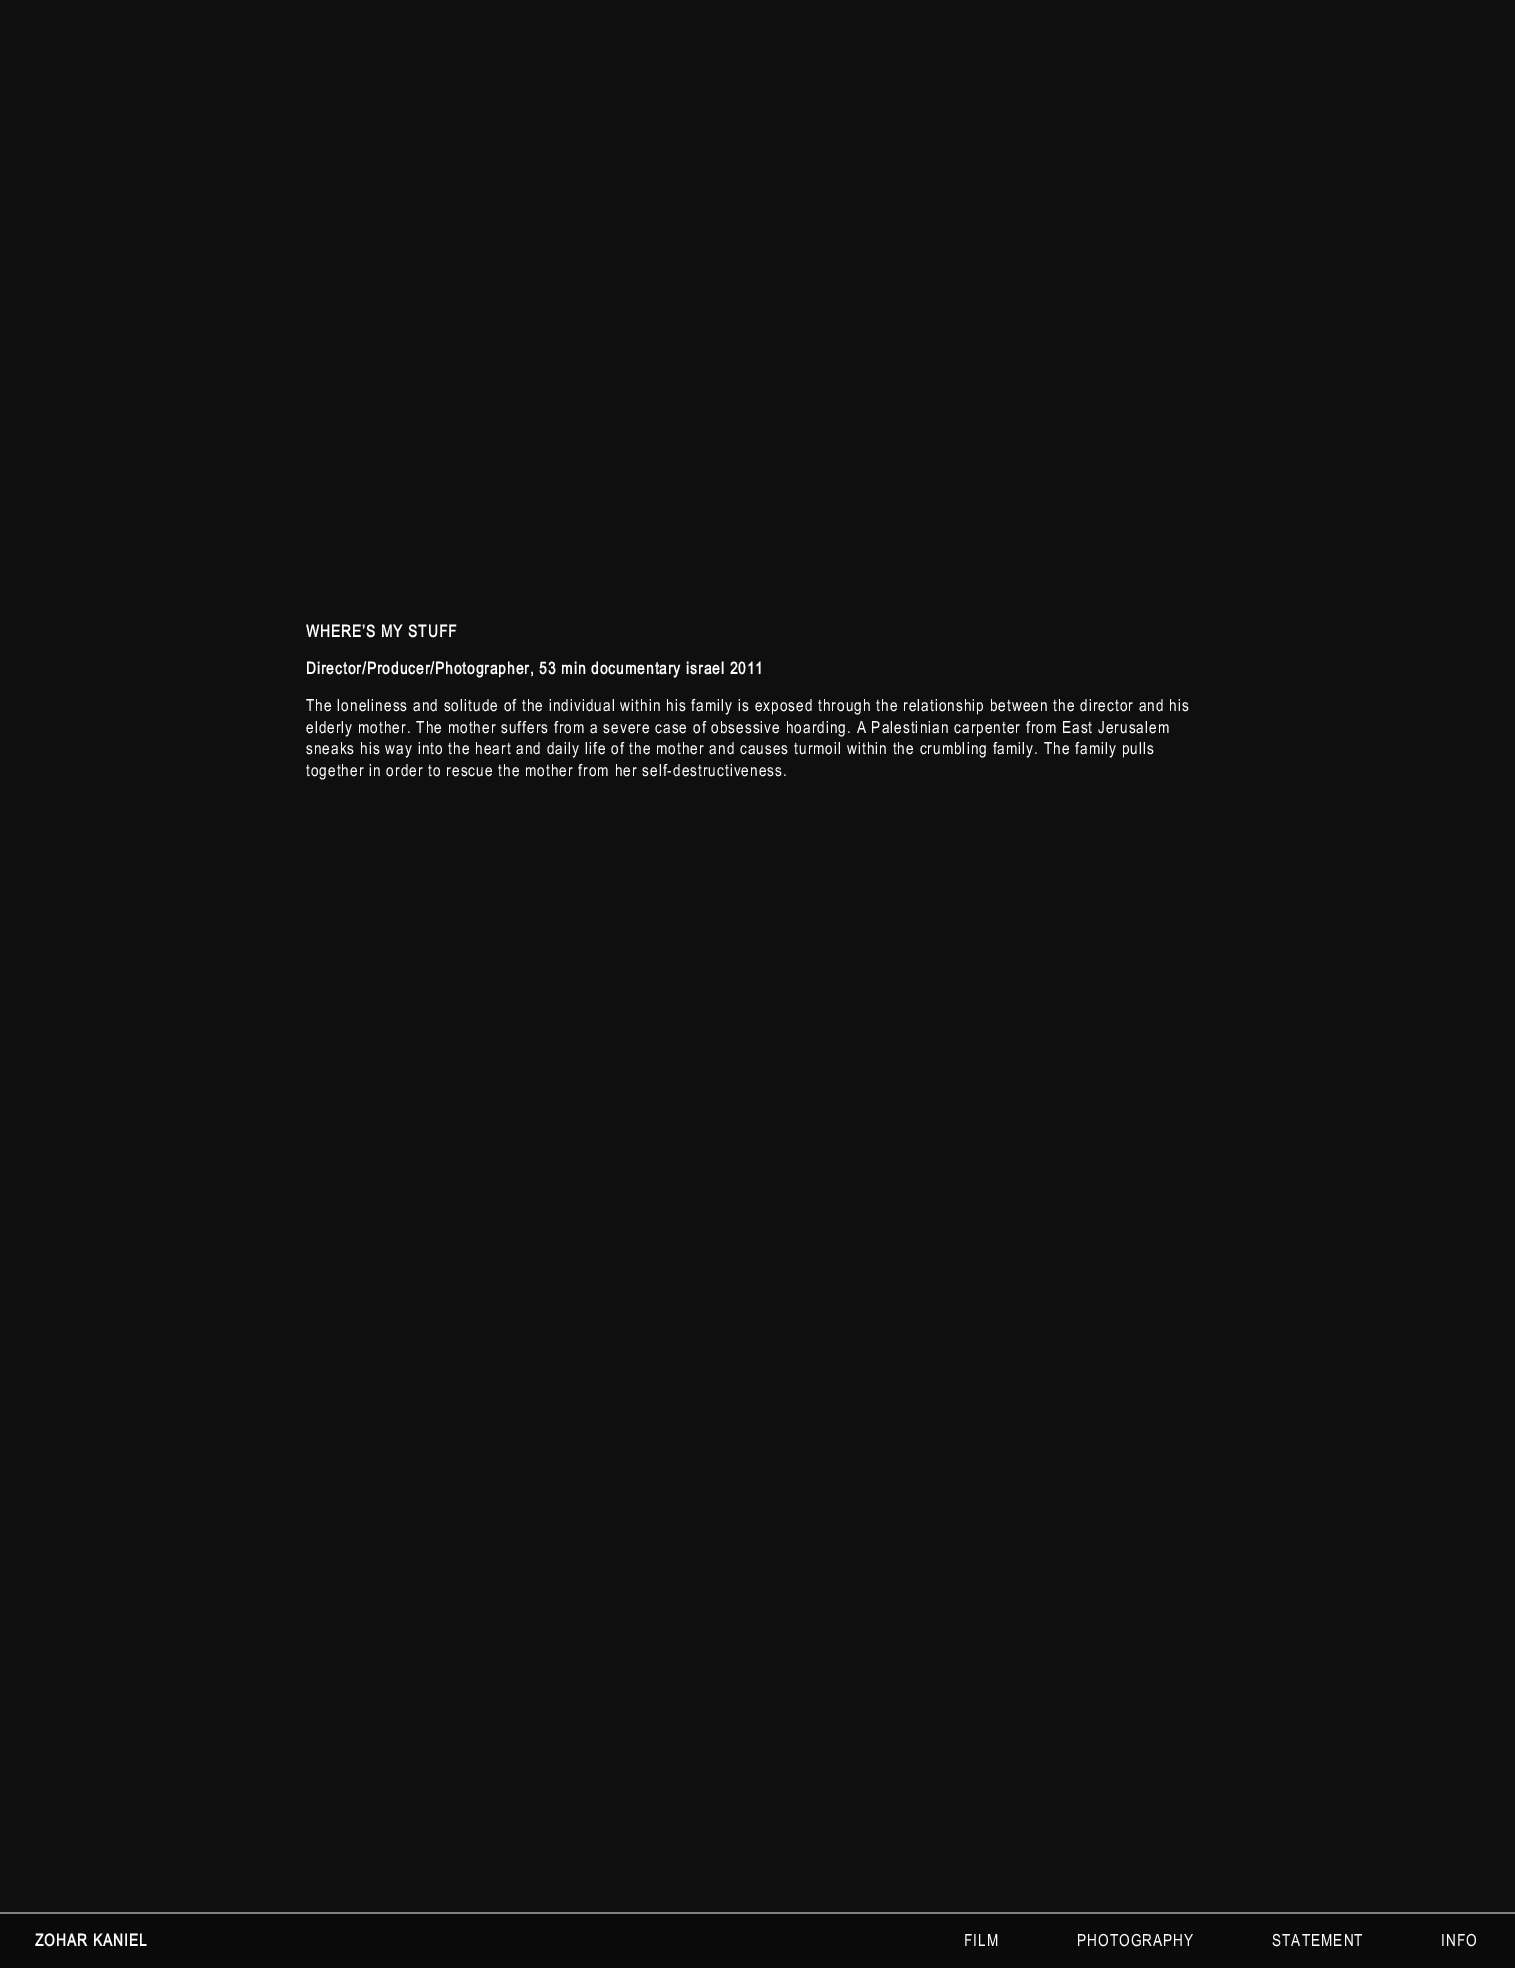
%!PS-Adobe-3.0
%%BoundingBox: 0 0 1515 1968
%%LanguageLevel: 3
%%Pages: 1
%%EndComments
%%BeginProlog
%%EndProlog
%%BeginSetup
<< /PageSize [1515 1968] >> setpagedevice
%%EndSetup
%%Page: 1 1
0 1968 translate 1 -1 scale
4 setmiterlimit
0.059 setgray
0 0 1515 1968 rectfill
0.039 setgray
0 1914 1515 54 rectfill
0.502 setgray
0 1912 1515 2 rectfill
/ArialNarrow-Bold [16.68 0 0 -16.68 0 0] selectfont
1 setgray
306 637 moveto 1 0 (WHERE’S MY STUFF) ashow
306 674 moveto 1 0 (Director/Producer/Photographer, 53 min documentary israel 2011) ashow
/ArialNarrow-Regular [16.68 0 0 -16.68 0 0] selectfont
306 711 moveto 1 0 (The loneliness and solitude of the individual within his family is exposed through the relationship between the director and his) ashow
306 733 moveto 1 0 (elderly mother. The mother suffers from a severe case of obsessive hoarding. A Palestinian carpenter from East Jerusalem) ashow
306 754 moveto 1 0 (sneaks his way into the heart and daily life of the mother and causes turmoil within the crumbling family. The family pulls) ashow
306 776 moveto 1 0 (together in order to rescue the mother from her self-destructiveness.) ashow
/ArialNarrow-Bold [16.68 0 0 -16.68 0 0] selectfont
35 1946 moveto 1 0 (ZOHAR KANIEL) ashow
/ArialNarrow-Regular [16.68 0 0 -16.68 0 0] selectfont
964 1946 moveto 1 0 (FILM) ashow
1077 1946 moveto 1 0 (PHOTOGRAPHY) ashow
1272 1946 moveto 1 0 (STATEMENT) ashow
1441 1946 moveto 1 0 (INFO) ashow
showpage
%%EOF
